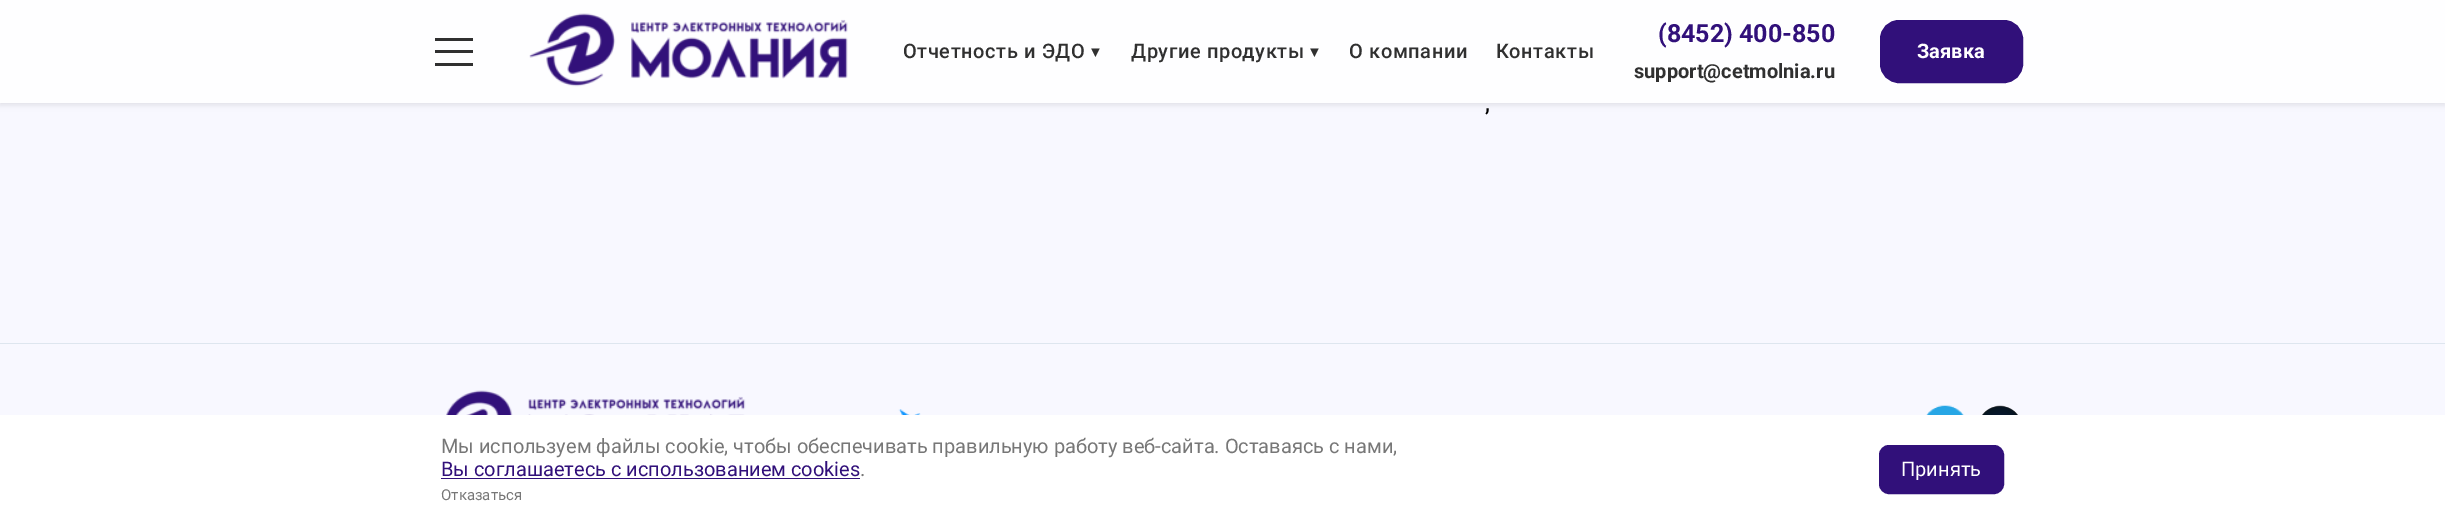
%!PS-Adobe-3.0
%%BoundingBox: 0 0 2445 523
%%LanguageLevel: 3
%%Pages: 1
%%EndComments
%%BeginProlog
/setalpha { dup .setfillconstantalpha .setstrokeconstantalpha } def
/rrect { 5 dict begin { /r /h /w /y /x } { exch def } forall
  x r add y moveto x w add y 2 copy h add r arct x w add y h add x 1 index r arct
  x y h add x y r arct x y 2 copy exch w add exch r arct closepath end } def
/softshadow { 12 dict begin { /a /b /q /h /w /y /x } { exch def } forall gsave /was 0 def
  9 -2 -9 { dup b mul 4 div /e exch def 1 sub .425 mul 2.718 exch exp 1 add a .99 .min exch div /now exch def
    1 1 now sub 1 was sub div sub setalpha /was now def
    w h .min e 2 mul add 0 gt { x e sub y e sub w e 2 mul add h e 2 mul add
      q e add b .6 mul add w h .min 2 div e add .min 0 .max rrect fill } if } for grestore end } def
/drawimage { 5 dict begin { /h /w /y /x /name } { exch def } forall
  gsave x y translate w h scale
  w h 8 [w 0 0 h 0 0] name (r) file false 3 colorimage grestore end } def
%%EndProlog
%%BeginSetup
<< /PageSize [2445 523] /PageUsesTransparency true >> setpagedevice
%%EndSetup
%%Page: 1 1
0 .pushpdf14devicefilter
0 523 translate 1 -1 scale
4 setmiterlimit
0.973 0.973 1 setrgbcolor
0 0 2445 523 rectfill
gsave
newpath 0 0 moveto 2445 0 lineto 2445 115 lineto 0 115 lineto closepath 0 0 moveto 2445 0 lineto 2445 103 lineto 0 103 lineto closepath eoclip newpath
0 setgray
0 3 2445 102 0 3 0.1 softshadow
grestore
0.9 setalpha
1 setgray
0 0 2445 103 rectfill
1 setalpha
0.188 setgray
435 38 38 3 rectfill
435 50 38 3 rectfill
435 63 38 3 rectfill
(images/1.raw) 529 13 319 74 drawimage
0.192 0.063 0.478 setrgbcolor
1881.5 21.5 140 60 17.5 rrect gsave fill grestore
3 setlinewidth
stroke
0.871 0.902 0.937 setrgbcolor
0 343 2445 1 rectfill
(images/2.raw) 446 390 300 25 drawimage
(images/3.raw) 898 409 23 6 drawimage
(images/4.raw) 1926 405 38 10 drawimage
(images/5.raw) 1982 405 36 10 drawimage
1 setgray
0 415 2445 108 rectfill
0.192 0.063 0.478 setrgbcolor
441 478 419 1 rectfill
1880.5 446.5 122 46 8.5 rrect gsave fill grestore
stroke
/Roboto-Medium [20 0 0 -20 0 0] selectfont
0.188 setgray
903 58 moveto 0.6 0 (Отчетность и ЭДО) ashow
/LiberationSans-Regular [15 0 0 -15 0 0] selectfont
1088 57 moveto 0.6 0 (▼) ashow
/Roboto-Medium [20 0 0 -20 0 0] selectfont
1131 58 moveto 0.6 0 (Другие продукты) ashow
/LiberationSans-Regular [15 0 0 -15 0 0] selectfont
1307 57 moveto 0.6 0 (▼) ashow
/Roboto-Medium [20 0 0 -20 0 0] selectfont
1349 58 moveto 0.6 0 (О компании) ashow
1496 58 moveto 0.6 0 (Контакты) ashow
/Roboto-Bold [25 0 0 -25 0 0] selectfont
0.192 0.063 0.478 setrgbcolor
1658 42 moveto (\(8452\) 400-850) show
/Roboto-Bold [20 0 0 -20 0 0] selectfont
0.188 setgray
1634 78 moveto (support@cetmolnia.ru) show
1 setgray
1917 58 moveto (Заявка) show
/Roboto-Regular [25 0 0 -25 0 0] selectfont
0 setgray
1485 111 moveto (,) show
/Roboto-Regular [20 0 0 -20 0 0] selectfont
0.467 setgray
441 453 moveto (Мы используем файлы cookie, чтобы обеспечивать правильную работу веб-сайта. Оставаясь с нами,) show
0.192 0.063 0.478 setrgbcolor
441 476 moveto (Вы соглашаетесь с использованием cookies) show
0.467 setgray
860 476 moveto (.) show
/Roboto-Regular [15 0 0 -15 0 0] selectfont
441 500 moveto (Отказаться) show
/Roboto-Regular [20 0 0 -20 0 0] selectfont
1 setgray
1901 476 moveto (Принять) show
.poppdf14devicefilter showpage
%%EOF
